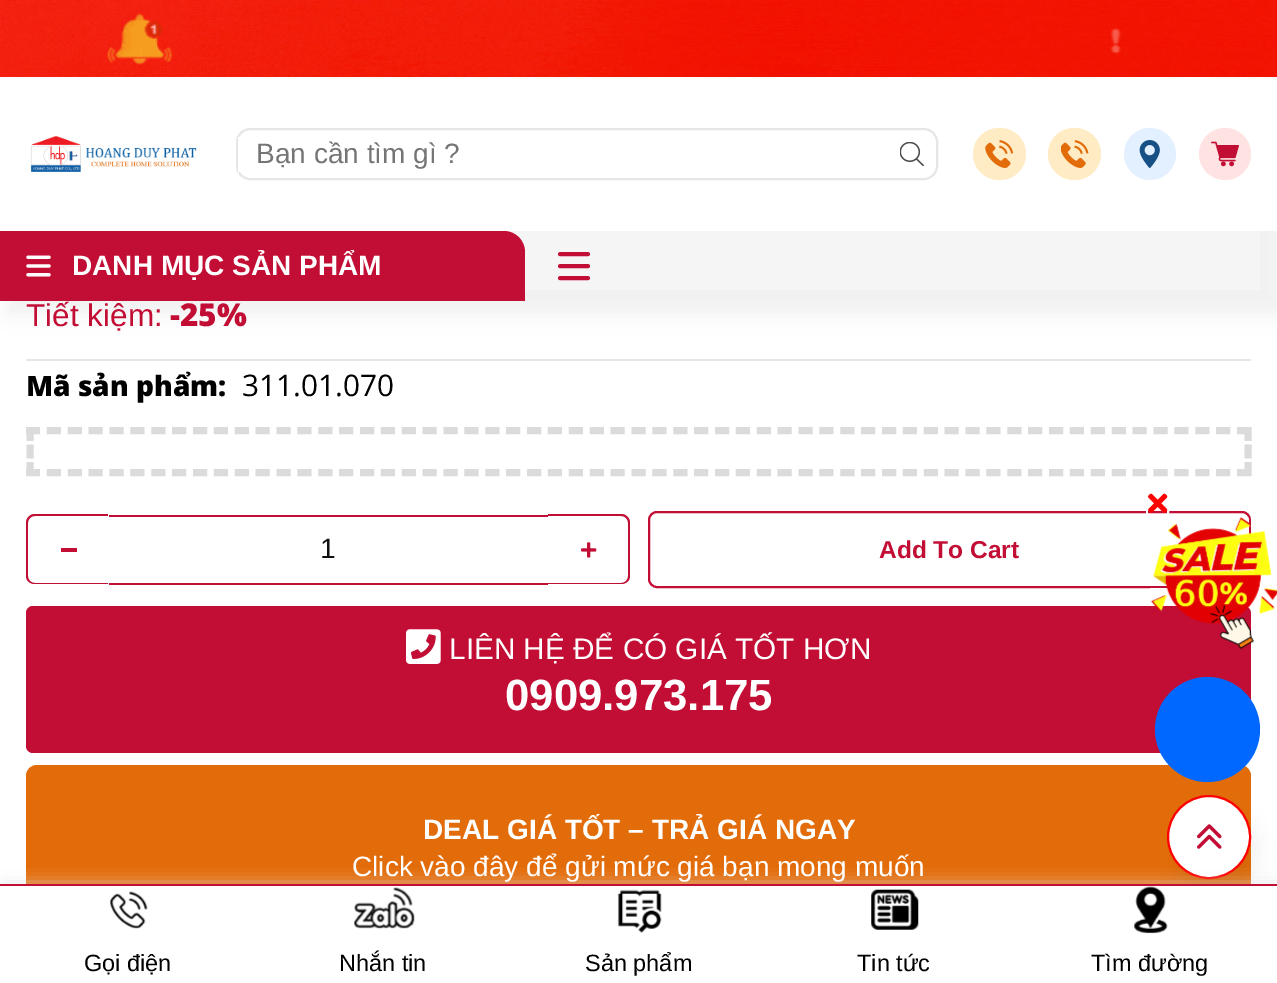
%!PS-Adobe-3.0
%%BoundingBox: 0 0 1277 983
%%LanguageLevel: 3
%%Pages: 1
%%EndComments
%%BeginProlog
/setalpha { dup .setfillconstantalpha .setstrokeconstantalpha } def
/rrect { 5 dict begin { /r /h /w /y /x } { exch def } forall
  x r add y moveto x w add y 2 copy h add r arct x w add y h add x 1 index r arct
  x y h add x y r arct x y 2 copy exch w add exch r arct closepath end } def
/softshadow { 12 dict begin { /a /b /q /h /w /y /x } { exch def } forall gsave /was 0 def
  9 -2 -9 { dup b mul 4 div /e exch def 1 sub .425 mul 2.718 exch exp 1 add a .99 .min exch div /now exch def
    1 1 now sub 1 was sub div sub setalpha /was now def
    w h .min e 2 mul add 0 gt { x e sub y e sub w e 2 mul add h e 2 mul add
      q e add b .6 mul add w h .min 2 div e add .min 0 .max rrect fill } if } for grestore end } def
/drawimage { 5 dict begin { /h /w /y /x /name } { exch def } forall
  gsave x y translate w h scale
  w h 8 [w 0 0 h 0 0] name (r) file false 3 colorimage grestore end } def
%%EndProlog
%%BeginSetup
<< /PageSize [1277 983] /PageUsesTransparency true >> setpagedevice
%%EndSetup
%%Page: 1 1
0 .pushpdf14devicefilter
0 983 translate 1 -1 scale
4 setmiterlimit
1 setgray
0 0 1277 983 rectfill
0 setgray
7 14 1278 301 0 10.5 0.05 softshadow
1 setgray
0 5 1277 226 rectfill
(images/1.raw) 0 0 1277 77 drawimage
(images/2.raw) 30 136 167 36 drawimage
0.902 setgray
2 setlinewidth
237 129 700 50 13 rrect stroke
1 setgray
238 137 2 35 rectfill
(images/3.raw) 900 142 24 24 drawimage
1 0.922 0.769 setrgbcolor
973 128 53 52 26 rrect fill
(images/4.raw) 985 140 28 28 drawimage
1048 128 53 52 26 rrect fill
(images/5.raw) 1061 140 28 28 drawimage
0.89 0.941 1 setrgbcolor
newpath 1150 154 26 0 360 arc closepath fill
(images/6.raw) 1139 140 21 28 drawimage
1 0.89 0.89 setrgbcolor
newpath 1225 154 26 0 360 arc closepath fill
(images/7.raw) 1211 141 28 26 drawimage
0.961 setgray
504 231 756 59 rectfill
0.761 0.055 0.204 setrgbcolor
newpath 0 231 moveto 504 231 lineto 515.5 231 525 240.5 525 252 curveto 525 301 lineto 0 301 lineto closepath fill
(images/8.raw) 26 255 25 22 drawimage
3.9 setlinewidth
1 setlinecap
newpath 560 254 moveto 588 254 lineto 560 266 moveto 588 266 lineto 560 278 moveto 588 278 lineto stroke
0.902 setgray
26 359 1225 2 rectfill
0.859 setgray
7 setlinewidth
0 setlinecap
[14 6.88] 0 setdash
newpath 26 430.5 moveto 1251 430.5 lineto stroke
[] 0 setdash
newpath 1248 427 moveto 1248 441 lineto 1248 444.5 moveto 1248 458.5 lineto 1248 462 moveto 1248 476 lineto stroke
[14 6.88] 0 setdash
newpath 26 472.5 moveto 1251 472.5 lineto stroke
[] 0 setdash
newpath 30 427 moveto 30 441 lineto 30 444.5 moveto 30 458.5 lineto 30 462 moveto 30 476 lineto stroke
0.761 0.055 0.204 setrgbcolor
newpath 35 514 moveto 108 514 lineto 108 584 lineto 35 584 lineto 30 584 26 581 26 576 curveto 26 523 lineto 26 518 30 514 35 514 curveto closepath 35 516 moveto 108 516 lineto 108 583 lineto 35 583 lineto 31 583 28 580 28 576 curveto 28 523 lineto 28 519 31 516 35 516 curveto closepath eofill
61 548 16 4 rectfill
109 515 439 2 rectfill
109 583 439 2 rectfill
newpath 548 514 moveto 621 514 lineto 626 514 630 518 630 523 curveto 630 576 lineto 630 581 626 584 621 584 curveto 548 584 lineto closepath 548 516 moveto 621 516 lineto 625 516 628 519 628 523 curveto 628 576 lineto 628 580 625 583 621 583 curveto 548 583 lineto closepath eofill
(images/9.raw) 581 542 16 16 drawimage
2 setlinewidth
649 512 601 75 8 rrect stroke
26 606 1225 147 7 rrect fill
(images/10.raw) 406 629 35 35 drawimage
0.89 0.424 0.039 setrgbcolor
26 765 1225 170 11 rrect fill
(images/12.raw) 1150 517 127 133 drawimage
1 setgray
1147 489 21 30 rectstroke
(images/11.raw) 1148 493 20 20 drawimage
0 setgray
1174 809 84 84 42 10.5 0.05 softshadow
1 setgray
newpath 1209 837 41 0 360 arc closepath gsave fill grestore
1 0 0 setrgbcolor
stroke
(images/13.raw) 1197 824 25 25 drawimage
0 0.408 1 setrgbcolor
newpath 1207.5 729.5 52.5 0 360 arc closepath fill
0.871 setgray
4 886 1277 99 0 8 1 softshadow
1 setgray
0 886 1277 97 rectfill
0.761 0.055 0.204 setrgbcolor
0 884 1277 2 rectfill
(images/14.raw) 110 891 38 38 drawimage
(images/15.raw) 354 887 61 42 drawimage
(images/16.raw) 617 889 45 44 drawimage
(images/17.raw) 871 889 48 41 drawimage
(images/18.raw) 1133 886 35 48 drawimage
/LiberationSans-Regular [28 0 0 -28 0 0] selectfont
0.459 setgray
256 163 moveto (Bạn cần tìm gì ?) show
/LiberationSans-Bold [28 0 0 -28 0 0] selectfont
1 setgray
72 275 moveto (DANH MỤC SẢN PHẨM) show
/LiberationSans-Regular [31.5 0 0 -31.5 0 0] selectfont
0.761 0.055 0.204 setrgbcolor
26 326 moveto (Tiết kiệm:) show
/OpenSans-ExtraBold [31.5 0 0 -31.5 0 0] selectfont
170 326 moveto (-25%) show
/OpenSans-ExtraBold [28 0 0 -28 0 0] selectfont
0 setgray
26 396 moveto (Mã sản phẩm:) show
/OpenSans-Regular [29.75 0 0 -29.75 0 0] selectfont
242 396 moveto (311.01.070) show
/LiberationSans-Regular [28 0 0 -28 0 0] selectfont
0.063 setgray
320 558 moveto 1 0 (1) ashow
/LiberationSans-Bold [24.5 0 0 -24.5 0 0] selectfont
0.761 0.055 0.204 setrgbcolor
879 558 moveto (Add To Cart) show
/LiberationSans-Regular [29.75 0 0 -29.75 0 0] selectfont
1 setgray
449 659 moveto (LIÊN HỆ ĐỂ CÓ GIÁ TỐT HƠN) show
/LiberationSans-Bold [43.75 0 0 -43.75 0 0] selectfont
505 710 moveto (0909.973.175) show
/LiberationSans-Bold [28 0 0 -28 0 0] selectfont
423 839 moveto (DEAL GIÁ TỐT – TRẢ GIÁ NGAY) show
/LiberationSans-Regular [28 0 0 -28 0 0] selectfont
352 876 moveto (Click vào đây để gửi mức giá bạn mong muốn) show
/LiberationSans-Regular [23.5 0 0 -23.5 0 0] selectfont
0 setgray
84 971 moveto (Gọi điện) show
339 971 moveto (Nhắn tin) show
585 971 moveto (Sản phẩm) show
857 971 moveto (Tin tức) show
1091 971 moveto (Tìm đường) show
.poppdf14devicefilter showpage
%%EOF
